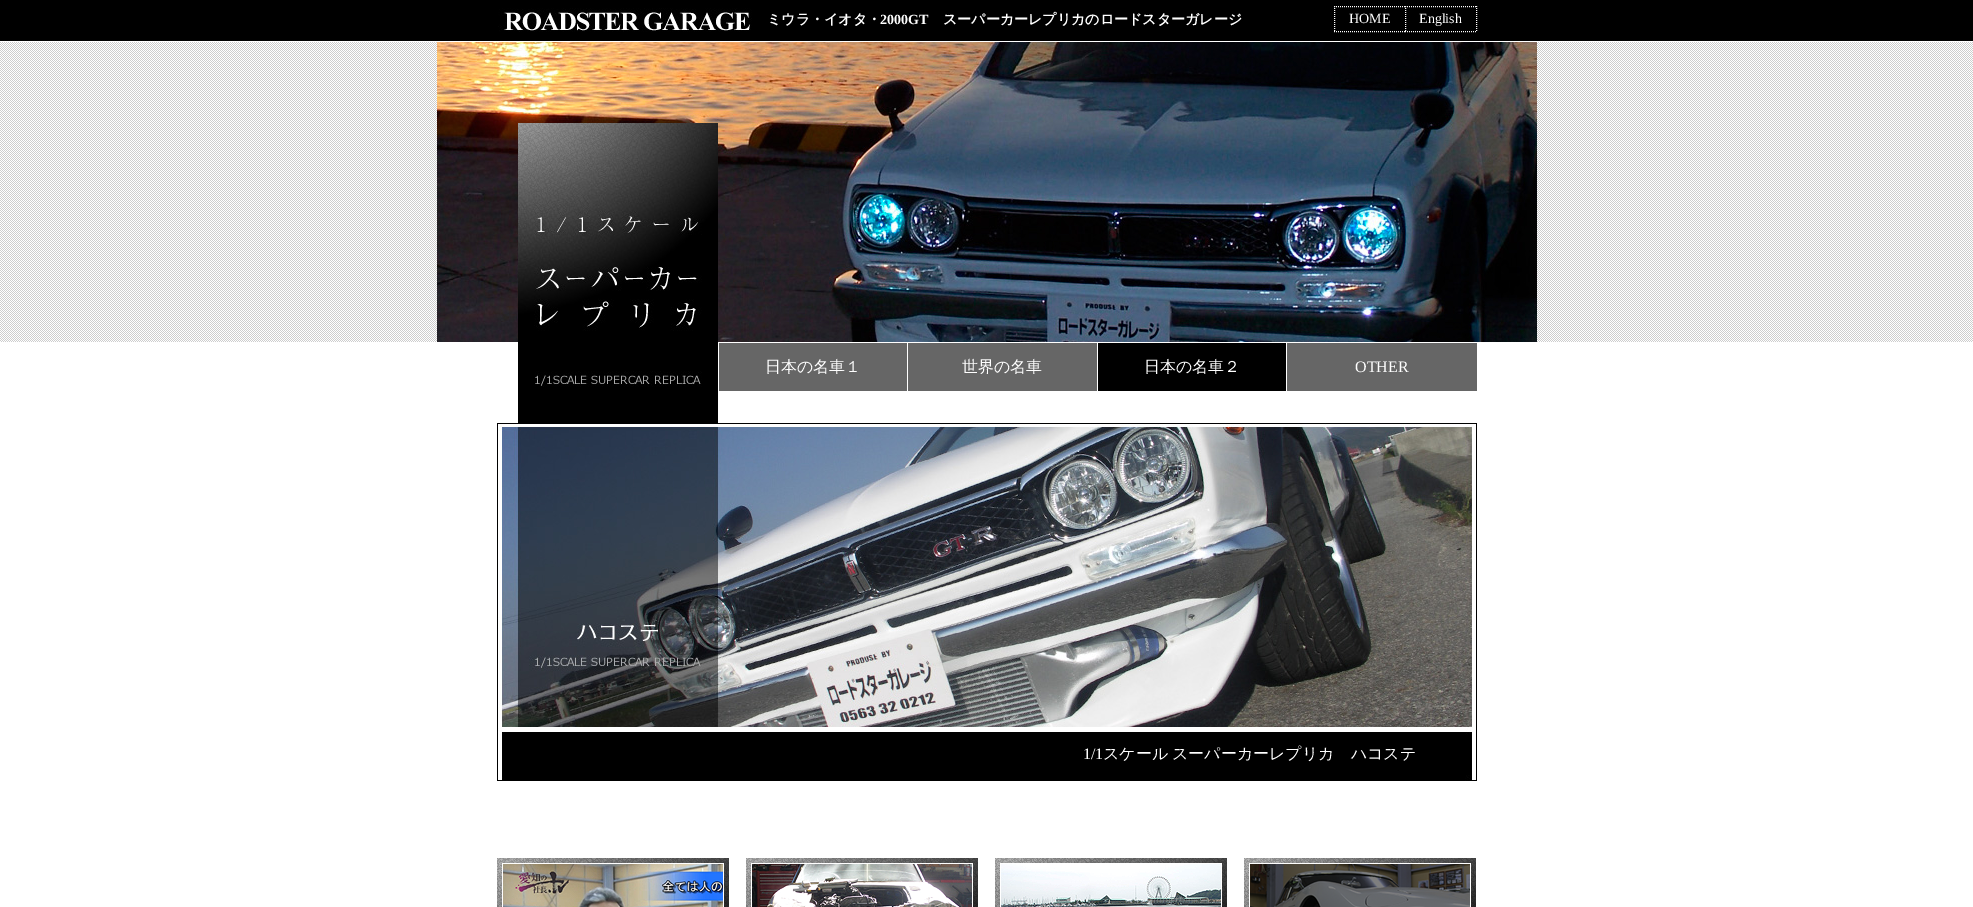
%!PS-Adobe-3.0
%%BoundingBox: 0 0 1973 907
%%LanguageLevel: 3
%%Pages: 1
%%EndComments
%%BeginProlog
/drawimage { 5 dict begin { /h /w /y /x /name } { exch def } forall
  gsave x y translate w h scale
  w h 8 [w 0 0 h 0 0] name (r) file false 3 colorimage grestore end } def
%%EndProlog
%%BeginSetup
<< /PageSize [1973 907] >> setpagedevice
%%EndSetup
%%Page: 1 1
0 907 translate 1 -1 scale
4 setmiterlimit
1 setgray
0 0 1973 907 rectfill
0 setgray
0 0 1973 41 rectfill
(images/1.raw) 498 8 254 24 drawimage
1 setgray
[1 1] 0 setdash
newpath 1334 6.5 moveto 1405 6.5 lineto stroke
newpath 1334 31.5 moveto 1405 31.5 lineto stroke
newpath 1334.5 6 moveto 1334.5 32 lineto stroke
newpath 1405 6.5 moveto 1477 6.5 lineto stroke
newpath 1476.5 6 moveto 1476.5 32 lineto stroke
newpath 1405 31.5 moveto 1477 31.5 lineto stroke
newpath 1405.5 6 moveto 1405.5 32 lineto stroke
(images/2.raw) 0 42 1973 300 drawimage
(images/3.raw) 437 42 1100 300 drawimage
(images/4.raw) 518 123 200 300 drawimage
0.4 setgray
719 343 188 48 rectfill
908 343 189 48 rectfill
0 setgray
1098 343 188 48 rectfill
0.4 setgray
1287 343 190 48 rectfill
(images/5.raw) 497 423 980 358 drawimage
(images/6.raw) 497 858 232 49 drawimage
(images/7.raw) 746 858 232 49 drawimage
(images/8.raw) 995 858 232 49 drawimage
(images/9.raw) 1244 858 232 49 drawimage
/WenQuanYiZenHei-Bold [14 0 0 -14 0 0] selectfont
1 setgray
767 24 moveto (ミウラ・イオタ・) show
/LiberationSerif-Bold [14 0 0 -14 0 0] selectfont
880 24 moveto (2000GT) show
/WenQuanYiZenHei-Bold [14 0 0 -14 0 0] selectfont
943 24 moveto (スーパーカーレプリカのロードスターガレージ) show
/LiberationSerif-Regular [14 0 0 -14 0 0] selectfont
1349 23 moveto (HOME) show
1419 23 moveto (English) show
/WenQuanYiZenHei-Medium [16 0 0 -16 0 0] selectfont
765 372 moveto (日本の名車１) show
962 372 moveto (世界の名車) show
1144 372 moveto (日本の名車２) show
/LiberationSerif-Regular [16 0 0 -16 0 0] selectfont
1355 372 moveto (OTHER) show
1083 759 moveto (1/1) show
/WenQuanYiZenHei-Medium [16 0 0 -16 0 0] selectfont
1103 759 moveto -1 0 32 (スケール スーパーカーレプリカ　ハコステ) widthshow
showpage
%%EOF
